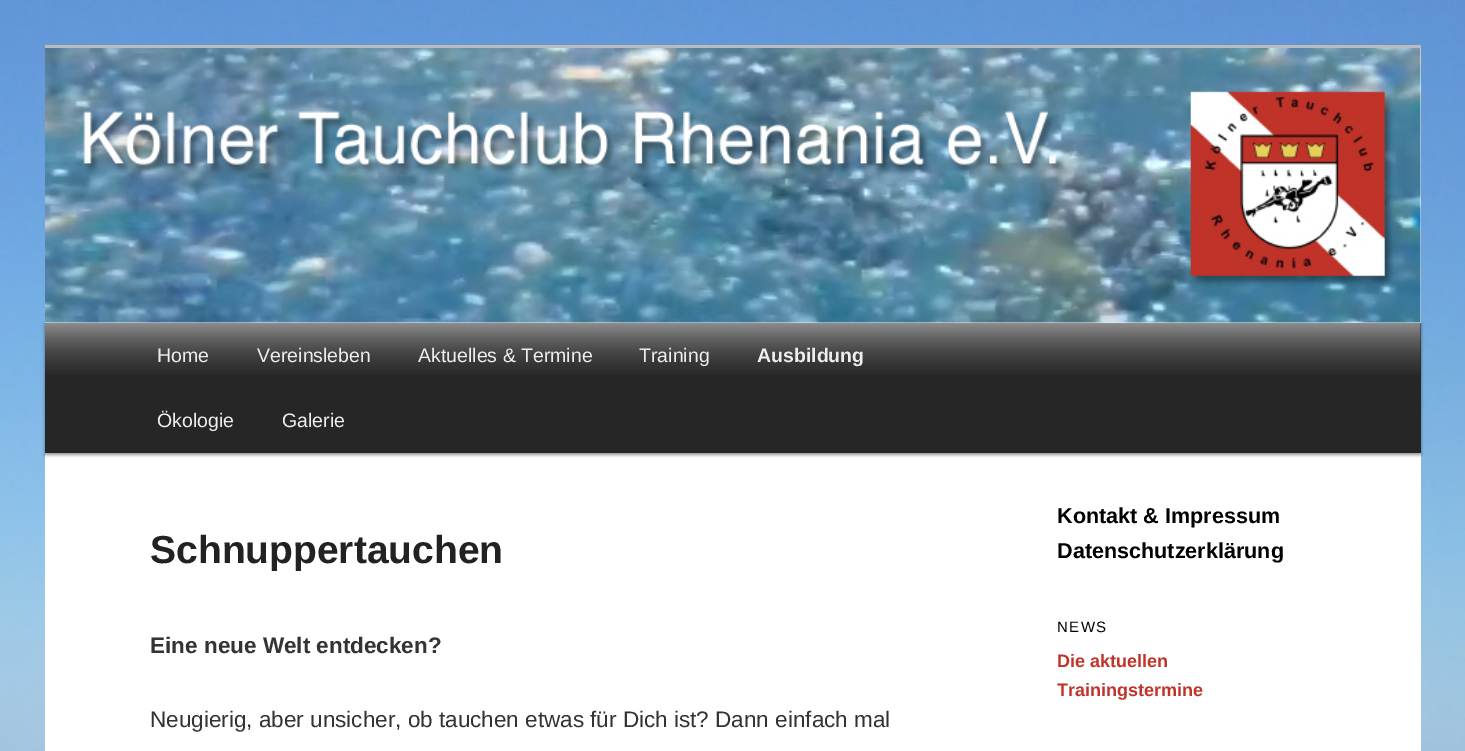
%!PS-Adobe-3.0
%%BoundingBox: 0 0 1465 751
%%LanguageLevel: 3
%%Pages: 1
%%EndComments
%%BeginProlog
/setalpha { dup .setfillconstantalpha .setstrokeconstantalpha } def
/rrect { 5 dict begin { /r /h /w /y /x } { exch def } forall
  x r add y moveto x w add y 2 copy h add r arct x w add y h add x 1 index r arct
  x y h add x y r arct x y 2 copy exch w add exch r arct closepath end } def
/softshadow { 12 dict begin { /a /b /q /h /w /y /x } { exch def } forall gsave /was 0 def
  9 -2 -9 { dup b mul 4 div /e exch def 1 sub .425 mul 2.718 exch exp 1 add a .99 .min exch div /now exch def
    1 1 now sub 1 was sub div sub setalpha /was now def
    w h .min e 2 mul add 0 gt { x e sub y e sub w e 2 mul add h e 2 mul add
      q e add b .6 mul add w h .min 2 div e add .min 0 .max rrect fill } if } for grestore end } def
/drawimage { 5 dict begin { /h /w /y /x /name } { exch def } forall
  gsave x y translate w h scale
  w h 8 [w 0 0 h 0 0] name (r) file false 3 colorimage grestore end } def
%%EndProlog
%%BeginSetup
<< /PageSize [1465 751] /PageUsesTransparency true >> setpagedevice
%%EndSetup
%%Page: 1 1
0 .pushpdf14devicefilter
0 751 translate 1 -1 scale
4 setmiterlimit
1 setgray
0 0 1465 751 rectfill
(images/1.raw) 0 0 1465 751 drawimage
45 48 1376 703 rectfill
0.733 setgray
45 45 1376 3 rectfill
0 setgray
45 324 1376 131 0 1.5 0.4 softshadow
(images/2.raw) 45 48 1376 275 drawimage
0.149 setgray
45 323 1376 130 rectfill
(images/3.raw) 45 323 1376 52 drawimage
/LiberationSans-Regular [19.5 0 0 -19.5 0 0] selectfont
0.933 setgray
157 362 moveto (Home) show
257 362 moveto (Vereinsleben) show
418 362 moveto (Aktuelles & Termine) show
639 362 moveto (Training) show
/LiberationSans-Bold [19.5 0 0 -19.5 0 0] selectfont
757 362 moveto (Ausbildung) show
/LiberationSans-Regular [19.5 0 0 -19.5 0 0] selectfont
157 427 moveto (Ökologie) show
282 427 moveto (Galerie) show
/LiberationSans-Bold [39 0 0 -39 0 0] selectfont
0.133 setgray
150 563 moveto (Schnuppertauchen) show
/LiberationSans-Bold [22.5 0 0 -22.5 0 0] selectfont
0.2 setgray
150 653 moveto (Eine neue Welt entdecken?) show
/LiberationSans-Regular [22.5 0 0 -22.5 0 0] selectfont
150 727 moveto (Neugierig, aber unsicher, ob tauchen etwas für Dich ist? Dann einfach mal) show
/LiberationSans-Bold [21.6 0 0 -21.6 0 0] selectfont
0 setgray
1057 523 moveto (Kontakt & Impressum) show
1057 558 moveto (Datenschutzerklärung) show
/LiberationSans-Regular [15 0 0 -15 0 0] selectfont
1057 632 moveto 1.5 0 (NEWS) ashow
/LiberationSans-Bold [18 0 0 -18 0 0] selectfont
0.757 0.2 0.161 setrgbcolor
1057 667 moveto (Die aktuellen) show
1057 696 moveto (Trainingstermine) show
.poppdf14devicefilter showpage
%%EOF
